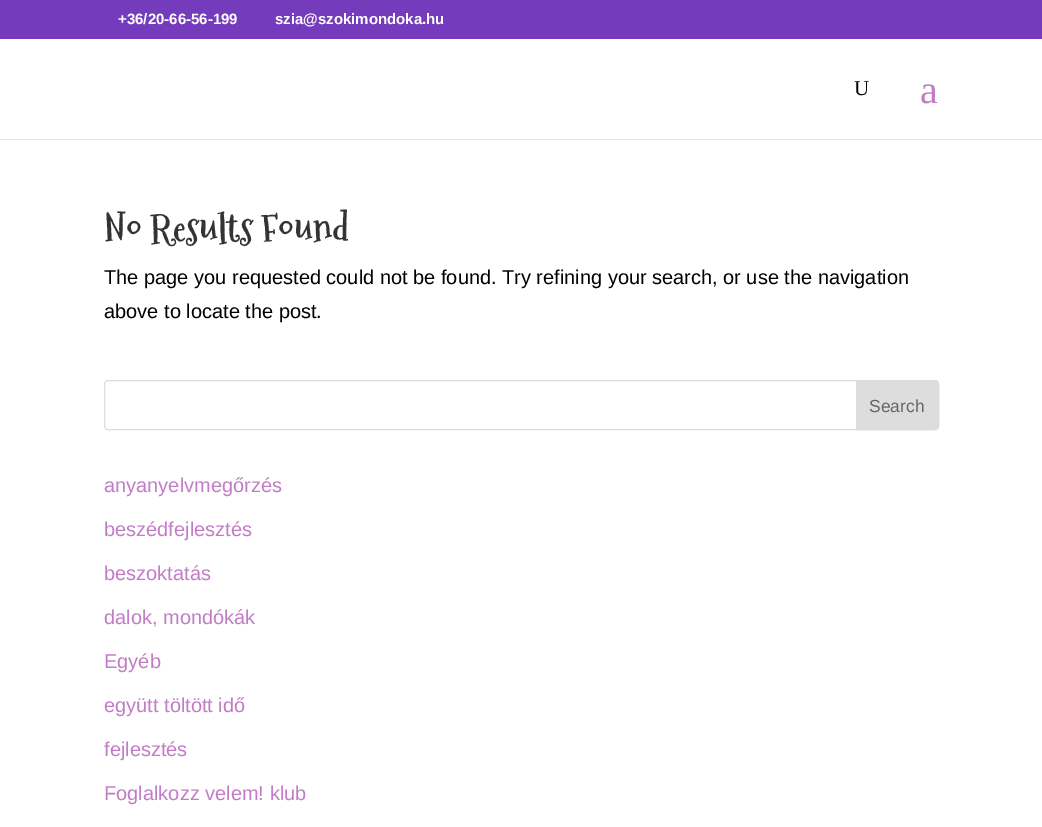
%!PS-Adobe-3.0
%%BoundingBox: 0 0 1042 827
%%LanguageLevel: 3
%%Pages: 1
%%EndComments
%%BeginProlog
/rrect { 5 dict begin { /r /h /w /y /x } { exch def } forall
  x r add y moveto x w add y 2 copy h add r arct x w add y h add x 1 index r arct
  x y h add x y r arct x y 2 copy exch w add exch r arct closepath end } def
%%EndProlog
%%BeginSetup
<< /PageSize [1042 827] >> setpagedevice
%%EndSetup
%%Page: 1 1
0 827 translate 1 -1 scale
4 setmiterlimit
0.459 0.231 0.741 setrgbcolor
0 0 1042 827 rectfill
0.902 setgray
newpath 0 139 moveto 0 140 lineto 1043 140 lineto 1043 40 lineto 1042 40 lineto 1042 139 lineto closepath fill
1 setgray
0 39 1042 100 rectfill
0 140 1042 687 rectfill
0.867 setgray
104.5 380.5 834 49 3.5 rrect stroke
newpath 856.5 380.5 moveto 935 380.5 lineto 937 380.5 938.5 382 938.5 384 curveto 938.5 426 lineto 938.5 428 937 429.5 935 429.5 curveto 856.5 429.5 lineto closepath gsave fill grestore
stroke
/LiberationSans-Bold [15 0 0 -15 0 0] selectfont
1 setgray
118 24 moveto (+36/20-66-56-199) show
275 24 moveto (szia@szokimondoka.hu) show
/LiberationSerif-Regular [21 0 0 -21 0 0] selectfont
0 setgray
854 95 moveto (U) show
/LiberationSerif-Regular [40 0 0 -40 0 0] selectfont
0.765 0.486 0.776 setrgbcolor
920 103 moveto (a) show
/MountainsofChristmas-Bold [37.5 0 0 -37.5 0 0] selectfont
0.2 setgray
104 241 moveto (No Results Found) show
/LiberationSans-Regular [20 0 0 -20 0 0] selectfont
0 setgray
104 284 moveto (The page you requested could not be found. Try refining your search, or use the navigation) show
104 318 moveto (above to locate the post.) show
/LiberationSans-Regular [17.5 0 0 -17.5 0 0] selectfont
0.4 setgray
869 412 moveto (Search) show
/LiberationSans-Regular [20 0 0 -20 0 0] selectfont
0.765 0.486 0.776 setrgbcolor
104 492 moveto (anyanyelvmegőrzés) show
104 536 moveto (beszédfejlesztés) show
104 580 moveto (beszoktatás) show
104 624 moveto (dalok, mondókák) show
104 668 moveto (Egyéb) show
104 712 moveto (együtt töltött idő) show
104 756 moveto (fejlesztés) show
104 800 moveto (Foglalkozz velem! klub) show
showpage
%%EOF
